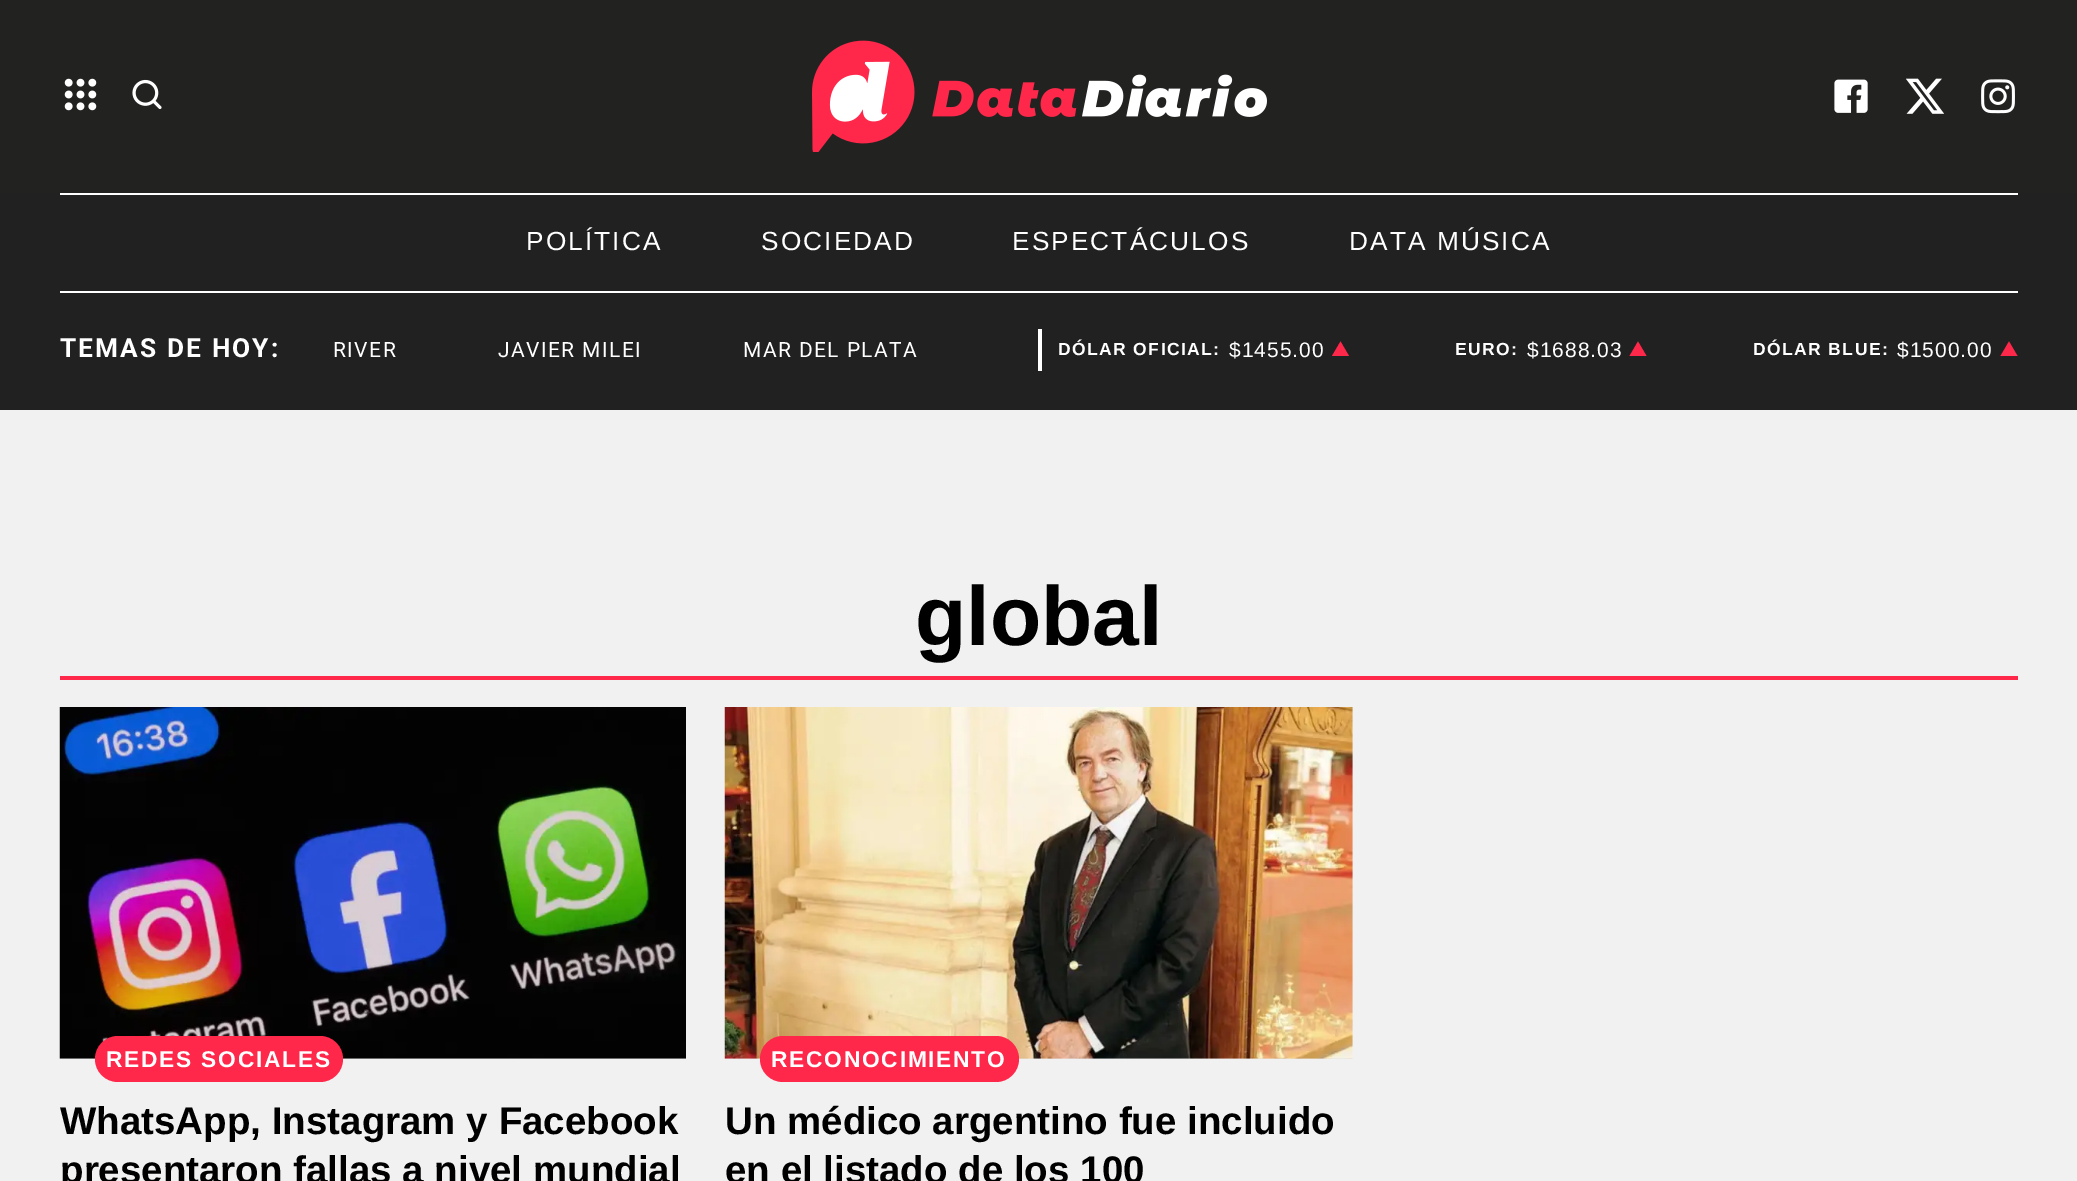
%!PS-Adobe-3.0
%%BoundingBox: 0 0 2077 1181
%%LanguageLevel: 3
%%Pages: 1
%%EndComments
%%BeginProlog
/rrect { 5 dict begin { /r /h /w /y /x } { exch def } forall
  x r add y moveto x w add y 2 copy h add r arct x w add y h add x 1 index r arct
  x y h add x y r arct x y 2 copy exch w add exch r arct closepath end } def
/drawimage { 5 dict begin { /h /w /y /x /name } { exch def } forall
  gsave x y translate w h scale
  w h 8 [w 0 0 h 0 0] name (r) file false 3 colorimage grestore end } def
%%EndProlog
%%BeginSetup
<< /PageSize [2077 1181] >> setpagedevice
%%EndSetup
%%Page: 1 1
0 1181 translate 1 -1 scale
4 setmiterlimit
0.945 setgray
0 0 2077 1181 rectfill
0.133 0.133 0.129 setrgbcolor
0 0 2077 193 rectfill
(images/1.raw) 64 78 33 33 drawimage
(images/2.raw) 132 79 30 30 drawimage
(images/3.raw) 812 40 455 112 drawimage
(images/4.raw) 1834 79 34 34 drawimage
(images/5.raw) 1906 78 38 36 drawimage
(images/6.raw) 1981 79 34 35 drawimage
0.129 setgray
0 193 2077 217 rectfill
1 setgray
60 193 1958 2 rectfill
60 291 1958 2 rectfill
1038 329 4 42 rectfill
1 0.153 0.29 setrgbcolor
newpath 1340.5 341.5 moveto 1349 356 lineto 1332 356 lineto closepath fill
newpath 1638 341.5 moveto 1646.5 356 lineto 1629.5 356 lineto closepath fill
newpath 2009 341.5 moveto 2017.5 356 lineto 2000.5 356 lineto closepath fill
60 676 1958 4 rectfill
(images/7.raw) 59 707 627 352 drawimage
95 1036 248 46 23 rrect fill
(images/8.raw) 724 707 629 352 drawimage
760 1036 259 46 23 rrect fill
/LiberationSans-Regular [26.25 0 0 -26.25 0 0] selectfont
1 setgray
526 250 moveto 2.1 0 (POLÍTICA) ashow
761 250 moveto 2.1 0 (SOCIEDAD) ashow
1012 250 moveto 2.1 0 (ESPECTÁCULOS) ashow
1349 250 moveto 2.1 0 (DATA MÚSICA) ashow
/Roboto-Bold [26.25 0 0 -26.25 0 0] selectfont
60 357 moveto 2.1 0 (TEMAS DE HOY:) ashow
/Roboto-Regular [21 0 0 -21 0 0] selectfont
333 357 moveto 1.4 0 (RIVER) ashow
498 357 moveto 1.4 0 (JAVIER MILEI) ashow
743 357 moveto 1.4 0 (MAR DEL PLATA) ashow
/LiberationSans-Bold [17.5 0 0 -17.5 0 0] selectfont
1058 355 moveto 1.4 0 (DÓLAR OFICIAL:) ashow
/LiberationSans-Regular [21 0 0 -21 0 0] selectfont
1229 357 moveto 1 0 ($1455.00) ashow
/LiberationSans-Bold [17.5 0 0 -17.5 0 0] selectfont
1455 355 moveto 1.4 0 (EURO:) ashow
/LiberationSans-Regular [21 0 0 -21 0 0] selectfont
1527 357 moveto 1 0 ($1688.03) ashow
/LiberationSans-Bold [17.5 0 0 -17.5 0 0] selectfont
1753 355 moveto 1.4 0 (DÓLAR BLUE:) ashow
/LiberationSans-Regular [21 0 0 -21 0 0] selectfont
1897 357 moveto 1 0 ($1500.00) ashow
/LiberationSans-Bold [84 0 0 -84 0 0] selectfont
0 setgray
915 645 moveto (global) show
/LiberationSans-Bold [22.75 0 0 -22.75 0 0] selectfont
1 setgray
106 1067 moveto 1.75 0 (REDES SOCIALES) ashow
/LiberationSans-Bold [38.5 0 0 -38.5 0 0] selectfont
0 setgray
60 1134 moveto (WhatsApp, Instagram y Facebook) show
60 1183 moveto (presentaron fallas a nivel mundial) show
/LiberationSans-Bold [22.75 0 0 -22.75 0 0] selectfont
1 setgray
771 1067 moveto 1.75 0 (RECONOCIMIENTO) ashow
/LiberationSans-Bold [38.5 0 0 -38.5 0 0] selectfont
0 setgray
725 1134 moveto (Un médico argentino fue incluido) show
725 1183 moveto (en el listado de los 100) show
showpage
%%EOF
